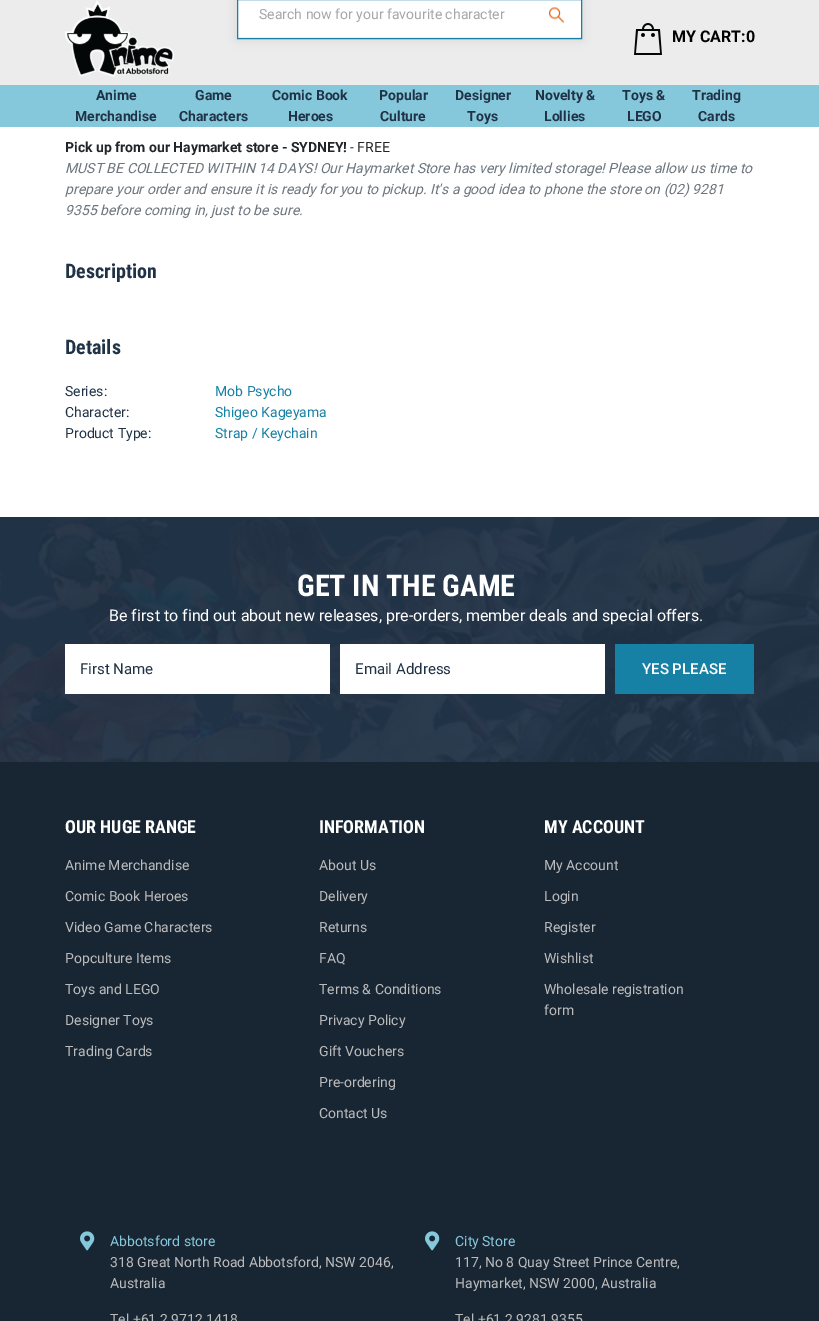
%!PS-Adobe-3.0
%%BoundingBox: 0 0 819 1321
%%LanguageLevel: 3
%%Pages: 1
%%EndComments
%%BeginProlog
/setalpha { dup .setfillconstantalpha .setstrokeconstantalpha } def
/rrect { 5 dict begin { /r /h /w /y /x } { exch def } forall
  x r add y moveto x w add y 2 copy h add r arct x w add y h add x 1 index r arct
  x y h add x y r arct x y 2 copy exch w add exch r arct closepath end } def
/softshadow { 12 dict begin { /a /b /q /h /w /y /x } { exch def } forall gsave /was 0 def
  9 -2 -9 { dup b mul 4 div /e exch def 1 sub .425 mul 2.718 exch exp 1 add a .99 .min exch div /now exch def
    1 1 now sub 1 was sub div sub setalpha /was now def
    w h .min e 2 mul add 0 gt { x e sub y e sub w e 2 mul add h e 2 mul add
      q e add b .6 mul add w h .min 2 div e add .min 0 .max rrect fill } if } for grestore end } def
/drawimage { 5 dict begin { /h /w /y /x /name } { exch def } forall
  gsave x y translate w h scale
  w h 8 [w 0 0 h 0 0] name (r) file false 3 colorimage grestore end } def
%%EndProlog
%%BeginSetup
<< /PageSize [819 1321] /PageUsesTransparency true >> setpagedevice
%%EndSetup
%%Page: 1 1
0 .pushpdf14devicefilter
0 1321 translate 1 -1 scale
4 setmiterlimit
1 setgray
0 0 819 1321 rectfill
0.925 setgray
0 0 819 85 rectfill
1 setgray
238 0 343 37 rectfill
gsave
newpath 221 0 moveto 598 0 lineto 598 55 lineto 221 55 lineto closepath 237 -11 moveto 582 -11 lineto 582 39 lineto 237 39 lineto closepath eoclip newpath
0 setgray
237 -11 345 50 0 5 0.1 softshadow
grestore
0.086 0.506 0.647 setrgbcolor
237.5 -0.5 344 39 rectstroke
(images/1.raw) 549 7 15 16 drawimage
(images/2.raw) 65 0 109 77 drawimage
(images/3.raw) 634 23 28 32 drawimage
0.522 0.784 0.859 setrgbcolor
0 85 819 42 rectfill
(images/4.raw) 0 517 819 245 drawimage
1 setgray
65 644 265 50 rectfill
340 644 265 50 rectfill
0.086 0.506 0.647 setrgbcolor
615 644 139 50 rectfill
0.094 0.149 0.204 setrgbcolor
0 762 819 559 rectfill
(images/5.raw) 80 1231 15 20 drawimage
(images/5.raw) 425 1231 15 20 drawimage
/Roboto-Regular [14 0 0 -14 0 0] selectfont
0.655 setgray
259 19 moveto (Search now for your favourite character) show
/Roboto-Bold [16 0 0 -16 0 0] selectfont
0 setgray
672 42 moveto (MY CART:0) show
/Roboto-Bold [14 0 0 -14 0 0] selectfont
0.125 0.196 0.275 setrgbcolor
96 100 moveto (Anime) show
75 121 moveto (Merchandise) show
195 100 moveto (Game) show
179 121 moveto (Characters) show
272 100 moveto (Comic Book) show
288 121 moveto (Heroes) show
379 100 moveto (Popular) show
380 121 moveto (Culture) show
455 100 moveto (Designer) show
467 121 moveto (Toys) show
535 100 moveto (Novelty &) show
544 121 moveto (Lollies) show
622 100 moveto (Toys &) show
627 121 moveto (LEGO) show
692 100 moveto (Trading) show
698 121 moveto (Cards) show
0.129 0.145 0.161 setrgbcolor
65 152 moveto (Pick up from our Haymarket store - SYDNEY!) show
/Roboto-Regular [14 0 0 -14 0 0] selectfont
350 152 moveto (- FREE) show
/Roboto-Italic [14 0 0 -14 0 0] selectfont
0.424 0.459 0.49 setrgbcolor
65 173 moveto (MUST BE COLLECTED WITHIN 14 DAYS! Our Haymarket Store has very limited storage! Please allow us time to) show
65 194 moveto (prepare your order and ensure it is ready for you to pickup. It's a good idea to phone the store on \(02\) 9281) show
65 215 moveto (9355 before coming in, just to be sure.) show
/RobotoCondensed-Bold [20 0 0 -20 0 0] selectfont
0.125 0.196 0.275 setrgbcolor
65 278 moveto (Description) show
65 354 moveto (Details) show
/Roboto-Regular [14 0 0 -14 0 0] selectfont
65 396 moveto (Series:) show
0.086 0.506 0.647 setrgbcolor
215 396 moveto (Mob Psycho) show
0.125 0.196 0.275 setrgbcolor
65 417 moveto (Character:) show
0.086 0.506 0.647 setrgbcolor
215 417 moveto (Shigeo Kageyama) show
0.125 0.196 0.275 setrgbcolor
65 438 moveto (Product Type:) show
0.086 0.506 0.647 setrgbcolor
215 438 moveto (Strap / Keychain) show
/RobotoCondensed-Bold [30 0 0 -30 0 0] selectfont
1 setgray
297 596 moveto (GET IN THE GAME) show
/Roboto-Regular [16 0 0 -16 0 0] selectfont
109 621 moveto (Be first to find out about new releases, pre-orders, member deals and special offers.) show
/Roboto-Regular [15 0 0 -15 0 0] selectfont
0.125 0.196 0.275 setrgbcolor
80 674 moveto (First Name) show
355 674 moveto (Email Address) show
/Roboto-Medium [15 0 0 -15 0 0] selectfont
1 setgray
642 674 moveto (YES PLEASE) show
/RobotoCondensed-Bold [18 0 0 -18 0 0] selectfont
65 833 moveto (OUR HUGE RANGE) show
/Roboto-Regular [14 0 0 -14 0 0] selectfont
0.733 setgray
65 870 moveto (Anime Merchandise) show
65 901 moveto (Comic Book Heroes) show
65 932 moveto (Video Game Characters) show
65 963 moveto (Popculture Items) show
65 994 moveto (Toys and LEGO) show
65 1025 moveto (Designer Toys) show
65 1056 moveto (Trading Cards) show
/RobotoCondensed-Bold [18 0 0 -18 0 0] selectfont
1 setgray
319 833 moveto (INFORMATION) show
/Roboto-Regular [14 0 0 -14 0 0] selectfont
0.733 setgray
319 870 moveto (About Us) show
319 901 moveto (Delivery) show
319 932 moveto (Returns) show
319 963 moveto (FAQ) show
319 994 moveto (Terms & Conditions) show
319 1025 moveto (Privacy Policy) show
319 1056 moveto (Gift Vouchers) show
319 1087 moveto (Pre-ordering) show
319 1118 moveto (Contact Us) show
/RobotoCondensed-Bold [18 0 0 -18 0 0] selectfont
1 setgray
544 833 moveto (MY ACCOUNT) show
/Roboto-Regular [14 0 0 -14 0 0] selectfont
0.733 setgray
544 870 moveto (My Account) show
544 901 moveto (Login) show
544 932 moveto (Register) show
544 963 moveto (Wishlist) show
544 994 moveto (Wholesale registration) show
544 1015 moveto (form) show
0.522 0.784 0.859 setrgbcolor
110 1246 moveto (Abbotsford store) show
0.733 setgray
110 1267 moveto (318 Great North Road Abbotsford, NSW 2046,) show
110 1288 moveto (Australia) show
110 1324 moveto (Tel +61 2 9712 1418) show
0.522 0.784 0.859 setrgbcolor
455 1246 moveto (City Store) show
0.733 setgray
455 1267 moveto (117, No 8 Quay Street Prince Centre,) show
455 1288 moveto (Haymarket, NSW 2000, Australia) show
455 1324 moveto (Tel +61 2 9281 9355) show
.poppdf14devicefilter showpage
%%EOF
